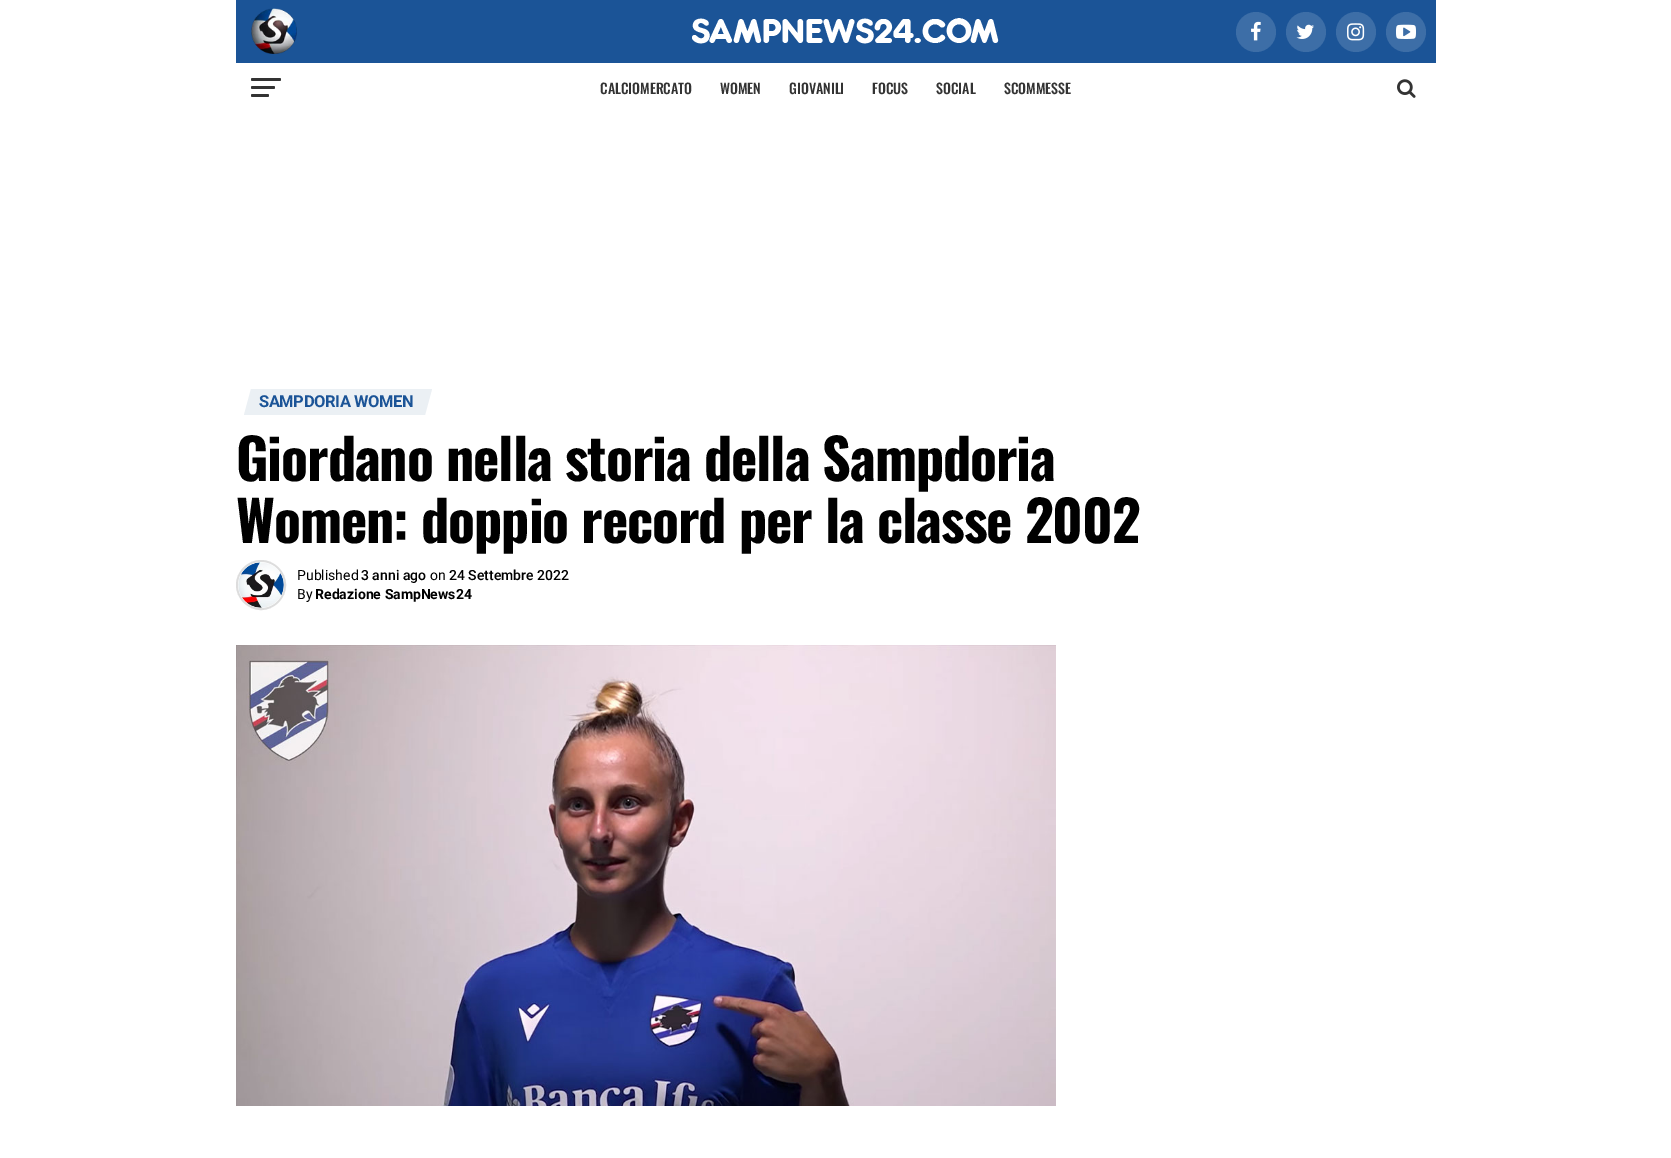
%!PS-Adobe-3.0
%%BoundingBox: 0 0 1671 1158
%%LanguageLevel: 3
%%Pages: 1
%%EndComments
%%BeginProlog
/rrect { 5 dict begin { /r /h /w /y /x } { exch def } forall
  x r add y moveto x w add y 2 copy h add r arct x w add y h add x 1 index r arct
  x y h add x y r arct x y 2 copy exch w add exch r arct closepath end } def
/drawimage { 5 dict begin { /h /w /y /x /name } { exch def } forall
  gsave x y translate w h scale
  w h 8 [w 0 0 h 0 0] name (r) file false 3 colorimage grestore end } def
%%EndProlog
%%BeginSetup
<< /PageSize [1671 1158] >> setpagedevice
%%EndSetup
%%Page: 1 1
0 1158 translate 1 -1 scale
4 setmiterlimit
1 setgray
0 0 1671 1158 rectfill
0.106 0.329 0.592 setrgbcolor
236 0 1200 63 rectfill
(images/1.raw) 251 8 46 46 drawimage
(images/2.raw) 692 18 307 26 drawimage
0.239 0.431 0.655 setrgbcolor
newpath 1256 32 20 0 360 arc closepath fill
(images/3.raw) 1251 21 10 20 drawimage
newpath 1306 32 20 0 360 arc closepath fill
(images/4.raw) 1296 24 18 15 drawimage
newpath 1356 32 20 0 360 arc closepath fill
(images/5.raw) 1347 23 18 18 drawimage
newpath 1406 32 20 0 360 arc closepath fill
(images/6.raw) 1396 24 20 15 drawimage
0.2 setgray
251 78 30 3 1.5 rrect fill
251 86 24 3 1.5 rrect fill
251 94 18 3 1.5 rrect fill
(images/7.raw) 1397 79 19 19 drawimage
0.922 0.941 0.957 setrgbcolor
newpath 251 389 moveto 432 389 lineto 425 415 lineto 244 415 lineto closepath fill
0.867 setgray
2 setlinewidth
newpath 261 585 24 0 360 arc closepath stroke
(images/8.raw) 238 562 46 46 drawimage
(images/9.raw) 236 645 820 461 drawimage
/Oswald-Medium [14 0 0 -14 0 0] selectfont
0.2 setgray
600 94 moveto (CALCIOMERCATO) show
720 94 moveto (WOMEN) show
789 94 moveto (GIOVANILI) show
872 94 moveto (FOCUS) show
936 94 moveto (SOCIAL) show
1004 94 moveto (SCOMMESSE) show
/Roboto-Bold [16.5 0 0 -16.5 0 0] selectfont
0.106 0.329 0.592 setrgbcolor
259 407 moveto -0.4 0 (SAMPDORIA WOMEN) ashow
/Oswald-Bold [56 0 0 -56 0 0] selectfont
0 setgray
236 481 moveto -1.1 0 (Giordano nella storia della Sampdoria) ashow
236 543 moveto -1.1 0 (Women: doppio record per la classe 2002) ashow
/Roboto-Regular [14 0 0 -14 0 0] selectfont
297 580 moveto (Published) show
/Roboto-Medium [14 0 0 -14 0 0] selectfont
361 580 moveto (3 anni ago) show
/Roboto-Regular [14 0 0 -14 0 0] selectfont
430 580 moveto (on) show
/Roboto-Medium [14 0 0 -14 0 0] selectfont
449 580 moveto (24 Settembre 2022) show
/Roboto-Regular [14 0 0 -14 0 0] selectfont
297 599 moveto (By) show
/Roboto-Bold [14 0 0 -14 0 0] selectfont
315 599 moveto (Redazione SampNews24) show
showpage
%%EOF
